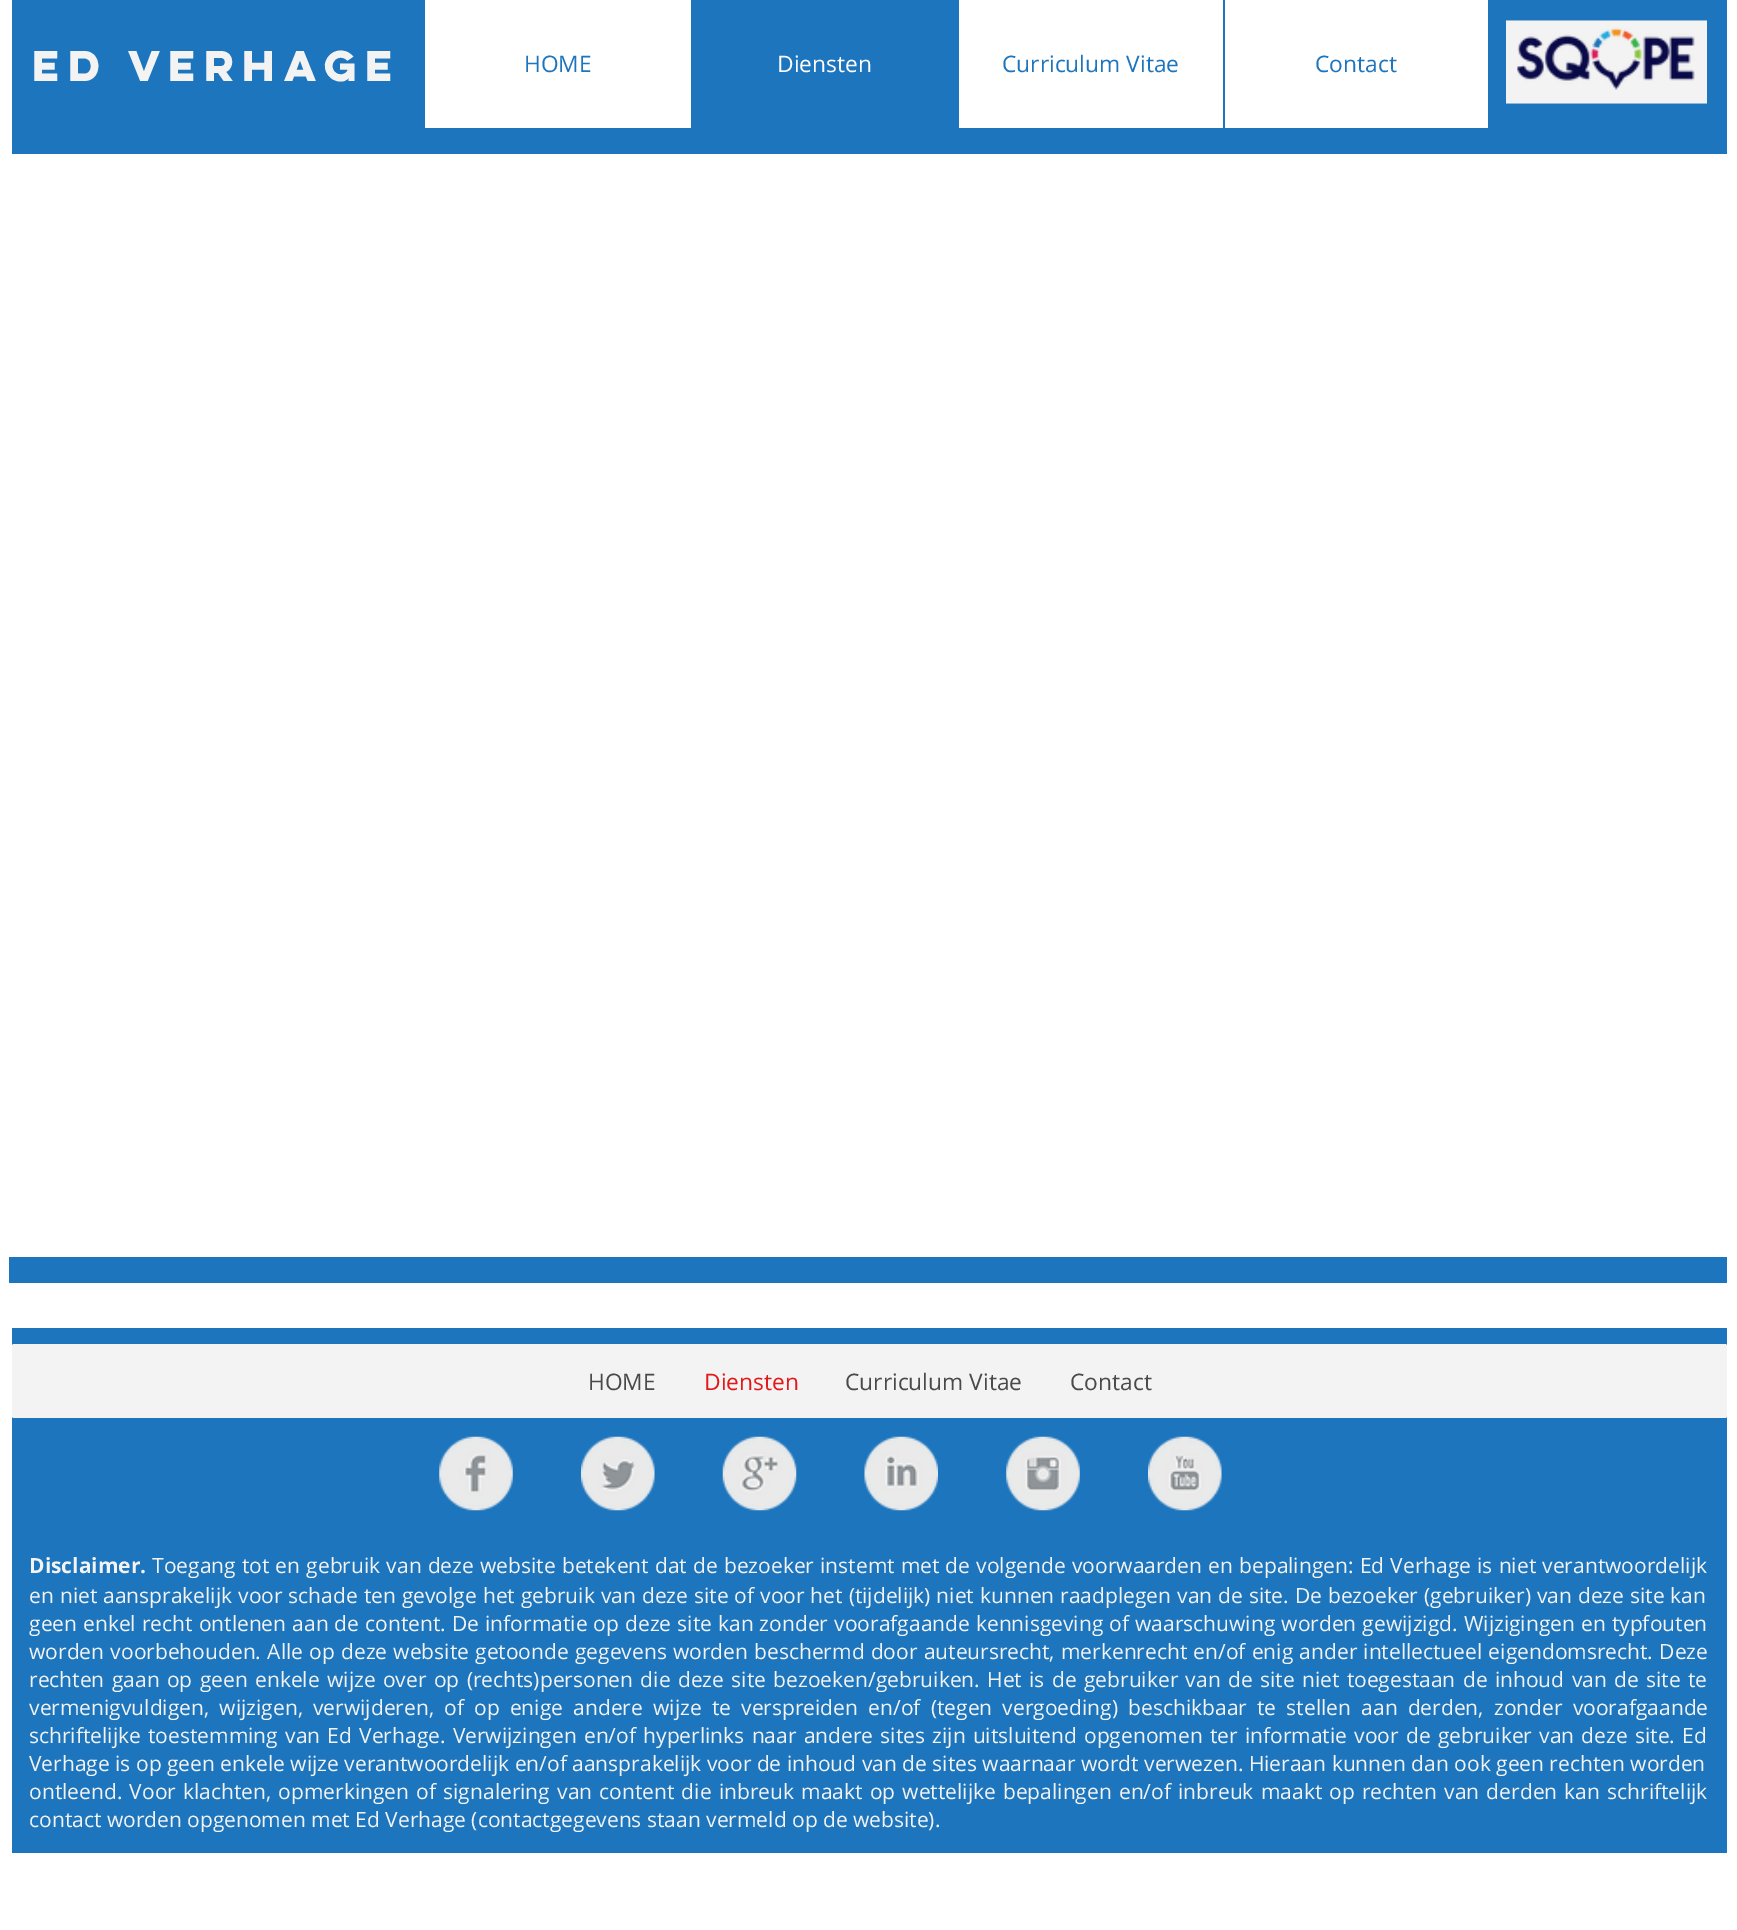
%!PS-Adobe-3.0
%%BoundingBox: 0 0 1737 1930
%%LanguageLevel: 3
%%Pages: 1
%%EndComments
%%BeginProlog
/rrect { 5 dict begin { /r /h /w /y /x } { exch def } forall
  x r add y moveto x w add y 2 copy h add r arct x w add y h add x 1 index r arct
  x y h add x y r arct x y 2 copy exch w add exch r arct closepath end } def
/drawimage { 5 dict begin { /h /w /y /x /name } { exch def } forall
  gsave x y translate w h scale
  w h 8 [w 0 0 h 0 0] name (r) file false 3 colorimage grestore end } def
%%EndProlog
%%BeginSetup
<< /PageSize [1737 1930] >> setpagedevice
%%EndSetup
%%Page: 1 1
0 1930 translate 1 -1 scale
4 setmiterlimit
1 setgray
0 0 1737 1930 rectfill
0.11 0.459 0.741 setrgbcolor
12 0 1715 154 rectfill
0.953 setgray
1514 29 185 66 rectfill
8.8 setlinewidth
newpath 1702.5 25 moveto 1702.5 99 lineto 1510.5 99 lineto 1510.5 25 lineto closepath stroke
1 setgray
425 0 1063 128 rectfill
0.11 0.459 0.741 setrgbcolor
691 0 268 128 rectfill
1223 0 2 128 rectfill
(images/1.raw) 1517 27 178 63 drawimage
9 1257 1718 26 rectfill
12 1328 1715 525 rectfill
0.953 setgray
12 1344 1715 74 2 rrect fill
(images/2.raw) 439 1436 74 75 drawimage
(images/3.raw) 581 1436 74 75 drawimage
(images/4.raw) 722 1436 75 75 drawimage
(images/5.raw) 864 1436 74 75 drawimage
(images/6.raw) 1006 1436 74 75 drawimage
(images/7.raw) 1148 1436 74 75 drawimage
/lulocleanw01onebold-Bold [38.5 0 0 -38.5 0 0] selectfont
32 81 moveto (Ed Verhage) show
/OpenSans-Regular [22.75 0 0 -22.75 0 0] selectfont
0.11 0.459 0.741 setrgbcolor
524 72 moveto (HOME) show
1 setgray
777 72 moveto (Diensten) show
0.11 0.459 0.741 setrgbcolor
1002 72 moveto (Curriculum Vitae) show
1315 72 moveto (Contact) show
0.29 setgray
588 1390 moveto (HOME) show
0.89 0.098 0.098 setrgbcolor
704 1390 moveto (Diensten) show
0.29 setgray
845 1390 moveto (Curriculum Vitae) show
1070 1390 moveto (Contact) show
/OpenSans-Bold [21 0 0 -21 0 0] selectfont
0.953 setgray
29 1573 moveto (Disclaimer.) show
/OpenSans-Regular [21 0 0 -21 0 0] selectfont
152 1573 moveto 0.7 0 32 (Toegang tot en gebruik van deze website betekent dat de bezoeker instemt met de volgende voorwaarden en bepalingen: Ed Verhage is niet verantwoordelijk) widthshow
29 1603 moveto 0.5 0 32 (en niet aansprakelijk voor schade ten gevolge het gebruik van deze site of voor het \(tijdelijk\) niet kunnen raadplegen van de site. De bezoeker \(gebruiker\) van deze site kan) widthshow
29 1631 moveto 0.6 0 32 (geen enkel recht ontlenen aan de content. De informatie op deze site kan zonder voorafgaande kennisgeving of waarschuwing worden gewijzigd. Wijzigingen en typfouten) widthshow
29 1659 moveto 0.75 0 32 (worden voorbehouden. Alle op deze website getoonde gegevens worden beschermd door auteursrecht, merkenrecht en/of enig ander intellectueel eigendomsrecht. Deze) widthshow
29 1687 moveto 1.9 0 32 (rechten gaan op geen enkele wijze over op \(rechts\)personen die deze site bezoeken/gebruiken. Het is de gebruiker van de site niet toegestaan de inhoud van de site te) widthshow
29 1715 moveto 4.75 0 32 (vermenigvuldigen, wijzigen, verwijderen, of op enige andere wijze te verspreiden en/of \(tegen vergoeding\) beschikbaar te stellen aan derden, zonder voorafgaande) widthshow
29 1743 moveto 1.75 0 32 (schriftelijke toestemming van Ed Verhage. Verwijzingen en/of hyperlinks naar andere sites zijn uitsluitend opgenomen ter informatie voor de gebruiker van deze site. Ed) widthshow
29 1771 moveto (Verhage is op geen enkele wijze verantwoordelijk en/of aansprakelijk voor de inhoud van de sites waarnaar wordt verwezen. Hieraan kunnen dan ook geen rechten worden) show
29 1799 moveto 1.7 0 32 (ontleend. Voor klachten, opmerkingen of signalering van content die inbreuk maakt op wettelijke bepalingen en/of inbreuk maakt op rechten van derden kan schriftelijk) widthshow
29 1827 moveto (contact worden opgenomen met Ed Verhage \(contactgegevens staan vermeld op de website\).) show
showpage
%%EOF
